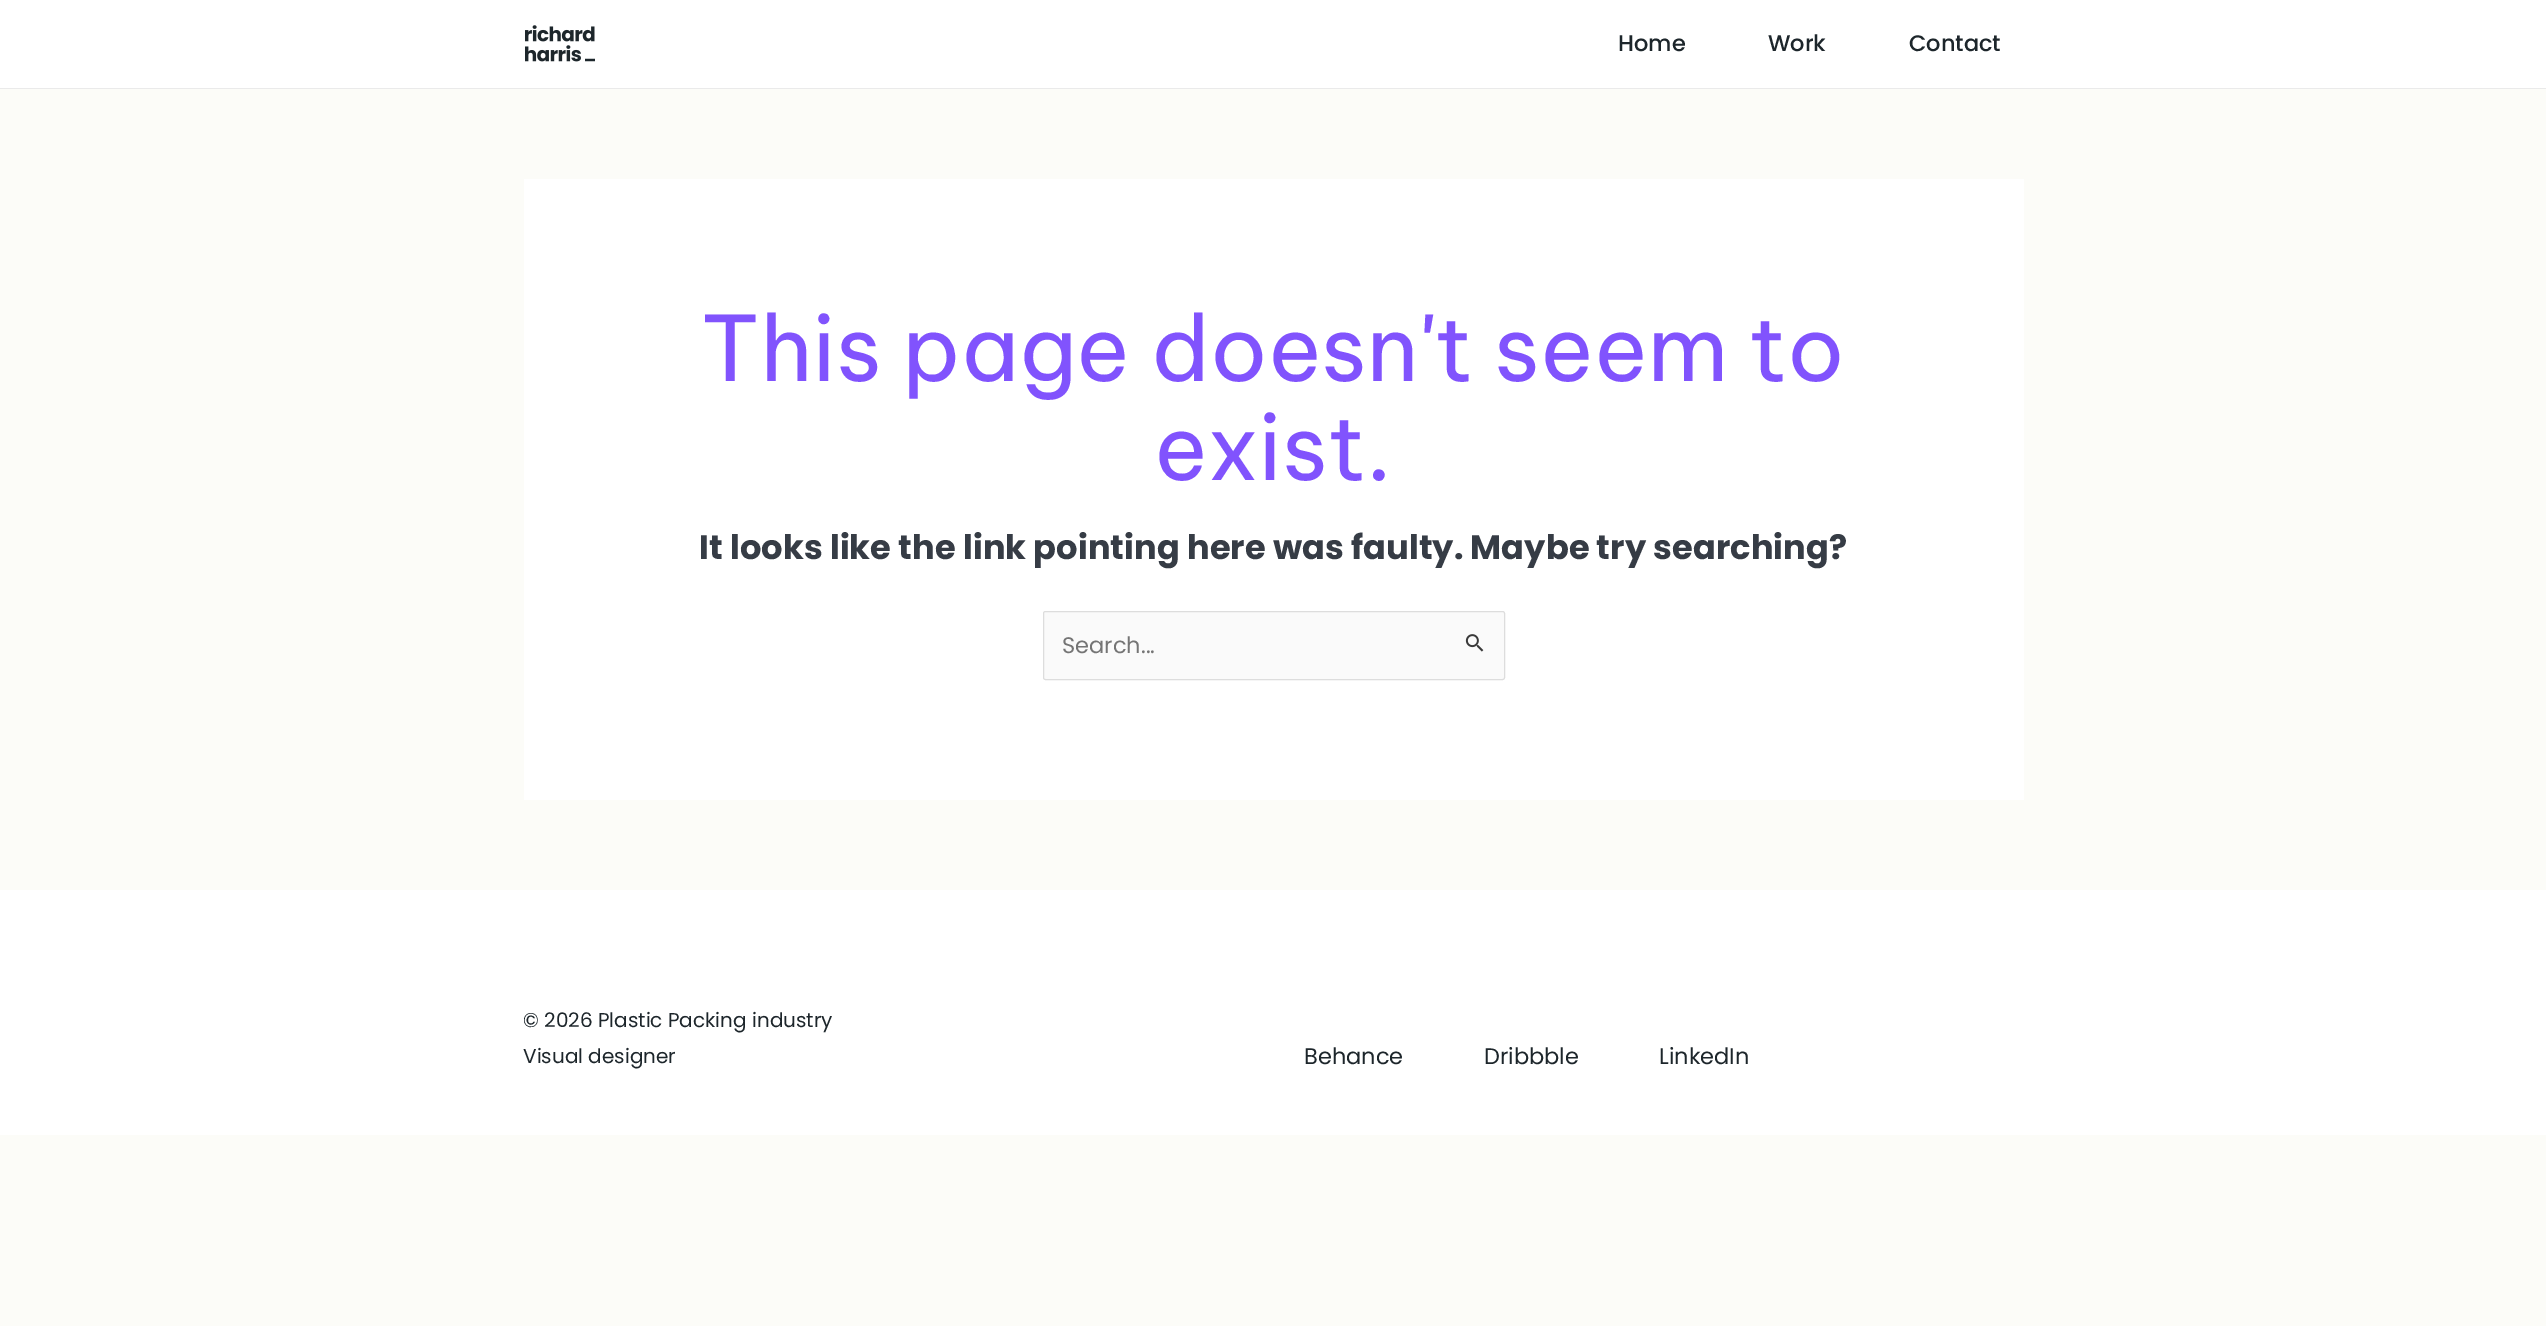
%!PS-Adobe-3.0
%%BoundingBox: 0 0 2546 1326
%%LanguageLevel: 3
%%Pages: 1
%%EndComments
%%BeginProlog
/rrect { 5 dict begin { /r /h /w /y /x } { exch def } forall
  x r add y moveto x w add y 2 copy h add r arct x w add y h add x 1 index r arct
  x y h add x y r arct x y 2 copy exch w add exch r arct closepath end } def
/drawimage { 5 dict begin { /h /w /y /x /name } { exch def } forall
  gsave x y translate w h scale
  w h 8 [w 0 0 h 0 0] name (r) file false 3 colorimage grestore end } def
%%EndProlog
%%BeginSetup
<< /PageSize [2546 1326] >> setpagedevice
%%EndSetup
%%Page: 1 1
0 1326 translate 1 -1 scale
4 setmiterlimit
0.988 0.988 0.973 setrgbcolor
0 0 2546 1326 rectfill
1 setgray
0 0 2546 88 rectfill
0.918 setgray
0 88 2546 1 rectfill
(images/1.raw) 525 25 70 37 drawimage
1 setgray
524 179 1500 621 rectfill
0.98 setgray
1043.5 611.5 461 68 2 rrect gsave fill grestore
0.867 setgray
stroke
(images/2.raw) 1465 634 19 18 drawimage
1 setgray
0 890 2546 245 rectfill
/Poppins-Medium [22.5 0 0 -22.5 0 0] selectfont
0.114 0.149 0.169 setrgbcolor
1618 51 moveto (Home) show
1768 51 moveto (Work) show
1909 51 moveto (Contact) show
/BeVietnamPro-Regular [90 0 0 -90 0 0] selectfont
0.506 0.325 0.992 setrgbcolor
701 381 moveto (This page doesn't seem to) show
1154 480 moveto (exist.) show
/Poppins-Bold [33.75 0 0 -33.75 0 0] selectfont
0.212 0.235 0.271 setrgbcolor
699 559 moveto (It looks like the link pointing here was faulty. Maybe try searching?) show
/Poppins-Regular [22.5 0 0 -22.5 0 0] selectfont
0.459 setgray
1062 653 moveto (Search...) show
/Poppins-Regular [20 0 0 -20 0 0] selectfont
0.114 0.149 0.169 setrgbcolor
523 1027 moveto (© 2026 Plastic Packing industry) show
523 1063 moveto (Visual designer) show
/Poppins-Regular [22.5 0 0 -22.5 0 0] selectfont
1304 1064 moveto (Behance) show
1484 1064 moveto (Dribbble) show
1659 1064 moveto (LinkedIn) show
showpage
%%EOF
